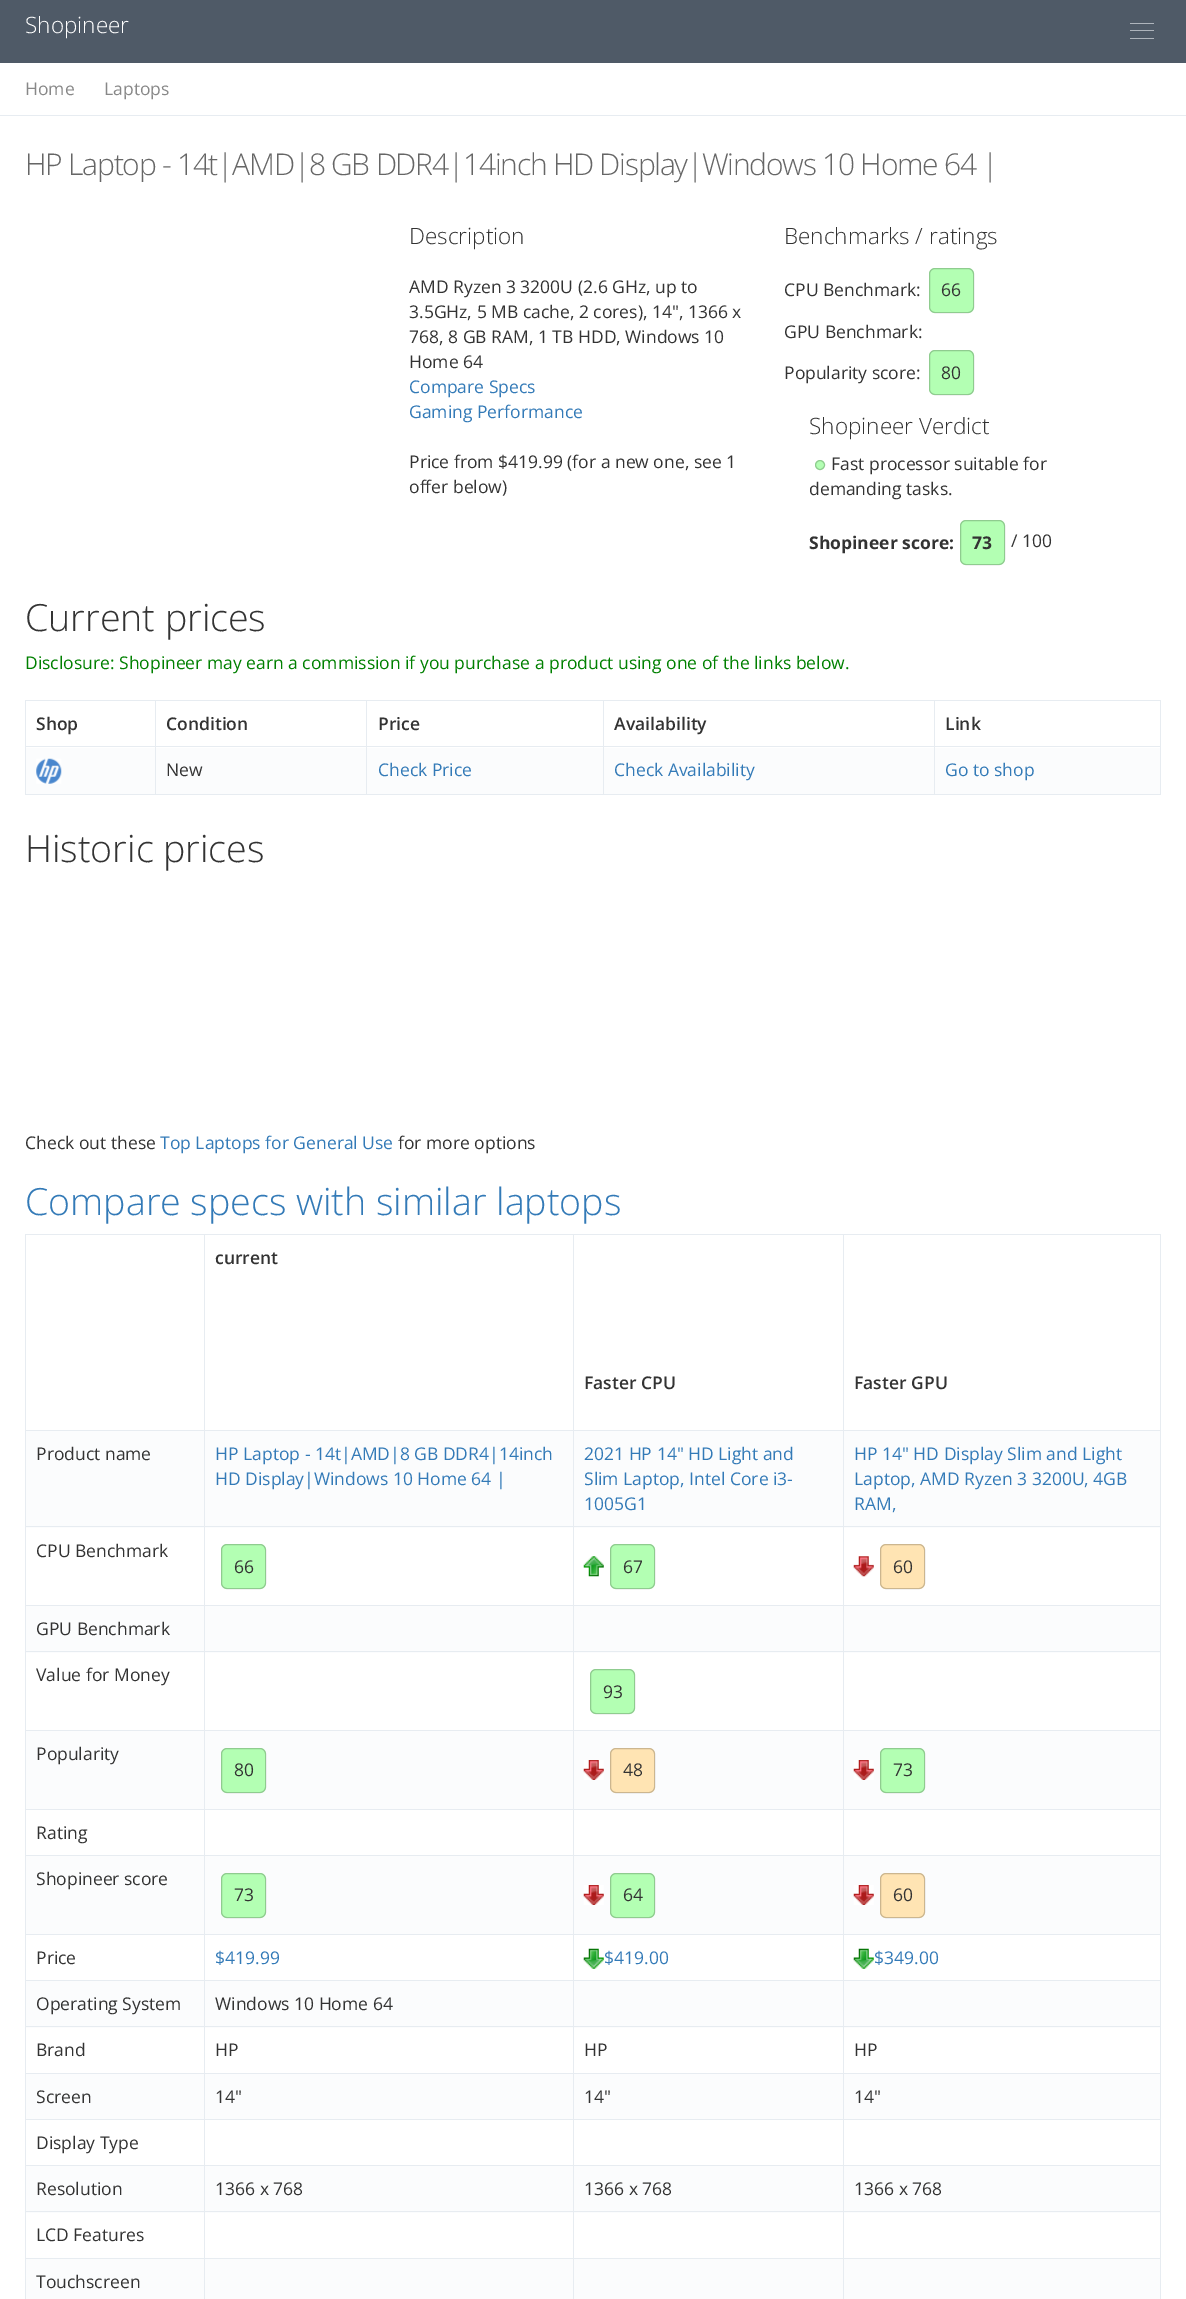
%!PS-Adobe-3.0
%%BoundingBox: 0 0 1186 2299
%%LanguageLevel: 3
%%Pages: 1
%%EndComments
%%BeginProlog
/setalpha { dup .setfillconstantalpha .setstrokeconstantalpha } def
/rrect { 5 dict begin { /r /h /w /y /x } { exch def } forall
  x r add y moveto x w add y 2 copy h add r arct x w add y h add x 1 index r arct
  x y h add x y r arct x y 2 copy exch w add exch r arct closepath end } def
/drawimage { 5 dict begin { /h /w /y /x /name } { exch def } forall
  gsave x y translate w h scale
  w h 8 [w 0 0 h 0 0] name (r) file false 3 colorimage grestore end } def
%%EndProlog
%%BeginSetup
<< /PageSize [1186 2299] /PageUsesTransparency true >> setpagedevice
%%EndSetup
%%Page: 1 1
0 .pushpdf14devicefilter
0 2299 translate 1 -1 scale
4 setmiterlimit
1 setgray
0 0 1186 2299 rectfill
0.31 0.353 0.404 setrgbcolor
0 0 1186 63 rectfill
0.682 0.706 0.737 setrgbcolor
1130 30 24 1 rectfill
1130 23 24 1 rectfill
1130 38 24 1 rectfill
0.906 0.925 0.945 setrgbcolor
0 115 1186 1 rectfill
0.702 1 0.702 setrgbcolor
929 268 45 45 6 rrect fill
0.2 setalpha
0 setgray
929.5 268.5 44 44 5.5 rrect stroke
1 setalpha
0.702 1 0.702 setrgbcolor
929 350 45 45 6 rrect fill
0.2 setalpha
0 setgray
929.5 350.5 44 44 5.5 rrect stroke
1 setalpha
0.702 1 0.702 setrgbcolor
newpath 820 465 5 0 360 arc closepath fill
0.2 setalpha
0 setgray
newpath 820 465 4.5 0 360 arc closepath stroke
1 setalpha
0.702 1 0.702 setrgbcolor
960 520 45 45 6 rrect fill
0.2 setalpha
0 setgray
960.5 520.5 44 44 5.5 rrect stroke
1 setalpha
0.906 0.925 0.945 setrgbcolor
25 700 1136 1 rectfill
1160 700 1 95 rectfill
25 794 1136 1 rectfill
25 700 1 95 rectfill
934 746 227 1 rectfill
0.984 0.988 0.992 setrgbcolor
26 748 1134 46 rectfill
0.906 0.925 0.945 setrgbcolor
934 746 1 49 rectfill
603 746 332 1 rectfill
603 746 1 49 rectfill
366 746 238 1 rectfill
366 746 1 49 rectfill
155 746 213 1 rectfill
155 746 1 49 rectfill
25 746 131 1 rectfill
155 700 1 48 rectfill
366 700 1 48 rectfill
603 700 1 48 rectfill
934 700 1 48 rectfill
(images/1.raw) 36 758 26 26 drawimage
25 1234 1136 1 rectfill
1160 1234 1 1065 rectfill
25 1234 1 1065 rectfill
843 1430 318 1 rectfill
0.984 0.988 0.992 setrgbcolor
26 1431 1134 97 rectfill
0.906 0.925 0.945 setrgbcolor
843 1526 318 1 rectfill
843 1605 318 1 rectfill
0.984 0.988 0.992 setrgbcolor
26 1606 1134 47 rectfill
0.906 0.925 0.945 setrgbcolor
843 1651 318 1 rectfill
843 1730 318 1 rectfill
0.984 0.988 0.992 setrgbcolor
26 1731 1134 78 rectfill
0.906 0.925 0.945 setrgbcolor
843 1809 318 1 rectfill
843 1855 318 1 rectfill
0.984 0.988 0.992 setrgbcolor
26 1856 1134 78 rectfill
0.906 0.925 0.945 setrgbcolor
843 1934 318 1 rectfill
843 1980 318 1 rectfill
0.984 0.988 0.992 setrgbcolor
26 1981 1134 47 rectfill
0.906 0.925 0.945 setrgbcolor
843 2026 318 1 rectfill
843 2073 318 1 rectfill
0.984 0.988 0.992 setrgbcolor
26 2074 1134 45 rectfill
0.906 0.925 0.945 setrgbcolor
843 2119 318 1 rectfill
843 2165 318 1 rectfill
0.984 0.988 0.992 setrgbcolor
26 2166 1134 47 rectfill
0.906 0.925 0.945 setrgbcolor
843 2211 318 1 rectfill
843 2258 318 1 rectfill
0.984 0.988 0.992 setrgbcolor
26 2259 1134 40 rectfill
0.906 0.925 0.945 setrgbcolor
843 2258 1 41 rectfill
573 2258 271 1 rectfill
843 2211 1 48 rectfill
573 2211 271 1 rectfill
843 2165 1 48 rectfill
573 2165 271 1 rectfill
843 2119 1 47 rectfill
573 2119 271 1 rectfill
843 2073 1 47 rectfill
573 2073 271 1 rectfill
843 2026 1 48 rectfill
573 2026 271 1 rectfill
843 1980 1 48 rectfill
573 1980 271 1 rectfill
843 1934 1 47 rectfill
573 1934 271 1 rectfill
843 1855 1 80 rectfill
573 1855 271 1 rectfill
843 1809 1 47 rectfill
573 1809 271 1 rectfill
843 1730 1 80 rectfill
573 1730 271 1 rectfill
843 1651 1 80 rectfill
573 1651 271 1 rectfill
843 1605 1 48 rectfill
573 1605 271 1 rectfill
843 1526 1 80 rectfill
573 1526 271 1 rectfill
843 1430 1 98 rectfill
573 1430 271 1 rectfill
573 2258 1 41 rectfill
204 2258 370 1 rectfill
573 2211 1 48 rectfill
204 2211 370 1 rectfill
573 2165 1 48 rectfill
204 2165 370 1 rectfill
573 2119 1 47 rectfill
204 2119 370 1 rectfill
573 2073 1 47 rectfill
204 2073 370 1 rectfill
573 2026 1 48 rectfill
204 2026 370 1 rectfill
573 1980 1 48 rectfill
204 1980 370 1 rectfill
573 1934 1 47 rectfill
204 1934 370 1 rectfill
573 1855 1 80 rectfill
204 1855 370 1 rectfill
573 1809 1 47 rectfill
204 1809 370 1 rectfill
573 1730 1 80 rectfill
204 1730 370 1 rectfill
573 1651 1 80 rectfill
204 1651 370 1 rectfill
573 1605 1 48 rectfill
204 1605 370 1 rectfill
573 1526 1 80 rectfill
204 1526 370 1 rectfill
573 1430 1 98 rectfill
204 1430 370 1 rectfill
204 2258 1 41 rectfill
25 2258 180 1 rectfill
204 2211 1 48 rectfill
25 2211 180 1 rectfill
204 2165 1 48 rectfill
25 2165 180 1 rectfill
204 2119 1 47 rectfill
25 2119 180 1 rectfill
204 2073 1 47 rectfill
25 2073 180 1 rectfill
204 2026 1 48 rectfill
25 2026 180 1 rectfill
204 1980 1 48 rectfill
25 1980 180 1 rectfill
204 1934 1 47 rectfill
25 1934 180 1 rectfill
204 1855 1 80 rectfill
25 1855 180 1 rectfill
204 1809 1 47 rectfill
25 1809 180 1 rectfill
204 1730 1 80 rectfill
25 1730 180 1 rectfill
204 1651 1 80 rectfill
25 1651 180 1 rectfill
204 1605 1 48 rectfill
25 1605 180 1 rectfill
204 1526 1 80 rectfill
25 1526 180 1 rectfill
204 1430 1 98 rectfill
25 1430 180 1 rectfill
204 1234 1 197 rectfill
573 1234 1 197 rectfill
843 1234 1 197 rectfill
0.702 1 0.702 setrgbcolor
221 1544 45 45 6 rrect fill
0.2 setalpha
0 setgray
221.5 1544.5 44 44 5.5 rrect stroke
1 setalpha
(images/2.raw) 583 1556 21 21 drawimage
0.702 1 0.702 setrgbcolor
610 1544 45 45 6 rrect fill
0.2 setalpha
0 setgray
610.5 1544.5 44 44 5.5 rrect stroke
1 setalpha
(images/3.raw) 853 1556 21 21 drawimage
1 0.894 0.702 setrgbcolor
880 1544 45 45 6 rrect fill
0.2 setalpha
0 setgray
880.5 1544.5 44 44 5.5 rrect stroke
1 setalpha
0.702 1 0.702 setrgbcolor
590 1669 45 45 6 rrect fill
0.2 setalpha
0 setgray
590.5 1669.5 44 44 5.5 rrect stroke
1 setalpha
0.702 1 0.702 setrgbcolor
221 1748 45 45 6 rrect fill
0.2 setalpha
0 setgray
221.5 1748.5 44 44 5.5 rrect stroke
1 setalpha
(images/4.raw) 583 1760 21 20 drawimage
1 0.894 0.702 setrgbcolor
610 1748 45 45 6 rrect fill
0.2 setalpha
0 setgray
610.5 1748.5 44 44 5.5 rrect stroke
1 setalpha
(images/4.raw) 853 1760 21 20 drawimage
0.702 1 0.702 setrgbcolor
880 1748 45 45 6 rrect fill
0.2 setalpha
0 setgray
880.5 1748.5 44 44 5.5 rrect stroke
1 setalpha
0.702 1 0.702 setrgbcolor
221 1873 45 45 6 rrect fill
0.2 setalpha
0 setgray
221.5 1873.5 44 44 5.5 rrect stroke
1 setalpha
(images/4.raw) 583 1885 21 20 drawimage
0.702 1 0.702 setrgbcolor
610 1873 45 45 6 rrect fill
0.2 setalpha
0 setgray
610.5 1873.5 44 44 5.5 rrect stroke
1 setalpha
(images/4.raw) 853 1885 21 20 drawimage
1 0.894 0.702 setrgbcolor
880 1873 45 45 6 rrect fill
0.2 setalpha
0 setgray
880.5 1873.5 44 44 5.5 rrect stroke
1 setalpha
(images/5.raw) 583 1948 21 21 drawimage
(images/5.raw) 853 1948 21 21 drawimage
/OpenSans-Light [22.5 0 0 -22.5 0 0] selectfont
1 setgray
25 33 moveto (Shopineer) show
/OpenSans-Regular [17.5 0 0 -17.5 0 0] selectfont
0.533 setgray
25 95 moveto (Home) show
104 95 moveto (Laptops) show
/OpenSans-Light [30 0 0 -30 0 0] selectfont
0.4 setgray
25 175 moveto -1.25 0 (HP Laptop - 14t|AMD|8 GB DDR4|14inch HD Display|Windows 10 Home 64 |) ashow
/OpenSans-Light [22.5 0 0 -22.5 0 0] selectfont
0.2 setgray
409 244 moveto (Description) show
/OpenSans-Regular [17.5 0 0 -17.5 0 0] selectfont
409 293 moveto (AMD Ryzen 3 3200U \(2.6 GHz, up to) show
409 318 moveto (3.5GHz, 5 MB cache, 2 cores\), 14", 1366 x) show
409 343 moveto (768, 8 GB RAM, 1 TB HDD, Windows 10) show
409 368 moveto (Home 64) show
0.2 0.478 0.718 setrgbcolor
409 393 moveto (Compare Specs) show
409 418 moveto (Gaming Performance) show
0.2 setgray
409 468 moveto (Price from $419.99 \(for a new one, see 1) show
409 493 moveto (offer below\)) show
/OpenSans-Light [22.5 0 0 -22.5 0 0] selectfont
784 244 moveto (Benchmarks / ratings) show
/OpenSans-Regular [17.5 0 0 -17.5 0 0] selectfont
784 296 moveto (CPU Benchmark:) show
941 296 moveto (66) show
784 338 moveto (GPU Benchmark:) show
784 379 moveto (Popularity score:) show
941 379 moveto (80) show
/OpenSans-Light [22.5 0 0 -22.5 0 0] selectfont
809 434 moveto (Shopineer Verdict) show
/OpenSans-Regular [17.5 0 0 -17.5 0 0] selectfont
831 470 moveto (Fast processor suitable for) show
809 495 moveto (demanding tasks.) show
/OpenSans-Bold [17.5 0 0 -17.5 0 0] selectfont
809 549 moveto (Shopineer score:) show
972 549 moveto (73) show
/OpenSans-Regular [17.5 0 0 -17.5 0 0] selectfont
1011 547 moveto (/ 100) show
/OpenSans-Light [37.5 0 0 -37.5 0 0] selectfont
25 631 moveto (Current prices) show
/OpenSans-Regular [17.5 0 0 -17.5 0 0] selectfont
0 0.502 0 setrgbcolor
25 669 moveto (Disclosure: Shopineer may earn a commission if you purchase a product using one of the links below.) show
/OpenSans-SemiBold [17.5 0 0 -17.5 0 0] selectfont
0.2 setgray
36 730 moveto (Shop) show
166 730 moveto (Condition) show
378 730 moveto (Price) show
614 730 moveto (Availability) show
945 730 moveto (Link) show
/OpenSans-Regular [17.5 0 0 -17.5 0 0] selectfont
166 776 moveto (New) show
0.2 0.478 0.718 setrgbcolor
378 776 moveto (Check Price) show
614 776 moveto (Check Availability) show
945 776 moveto (Go to shop) show
/OpenSans-Light [37.5 0 0 -37.5 0 0] selectfont
0.2 setgray
25 862 moveto (Historic prices) show
/OpenSans-Regular [17.5 0 0 -17.5 0 0] selectfont
25 1149 moveto (Check out these) show
0.2 0.478 0.718 setrgbcolor
160 1149 moveto (Top Laptops for General Use) show
0.2 setgray
398 1149 moveto (for more options) show
/OpenSans-Light [37.5 0 0 -37.5 0 0] selectfont
0.2 0.478 0.718 setrgbcolor
25 1215 moveto (Compare specs with similar laptops) show
/OpenSans-SemiBold [17.5 0 0 -17.5 0 0] selectfont
0.2 setgray
215 1264 moveto (current) show
584 1389 moveto (Faster CPU) show
854 1389 moveto (Faster GPU) show
/OpenSans-Regular [17.5 0 0 -17.5 0 0] selectfont
36 1460 moveto (Product name) show
0.2 0.478 0.718 setrgbcolor
215 1460 moveto (HP Laptop - 14t|AMD|8 GB DDR4|14inch) show
215 1485 moveto (HD Display|Windows 10 Home 64 |) show
584 1460 moveto (2021 HP 14" HD Light and) show
584 1485 moveto (Slim Laptop, Intel Core i3-) show
584 1510 moveto (1005G1) show
854 1460 moveto (HP 14" HD Display Slim and Light) show
854 1485 moveto (Laptop, AMD Ryzen 3 3200U, 4GB) show
854 1510 moveto (RAM,) show
0.2 setgray
36 1557 moveto (CPU Benchmark) show
234 1573 moveto (66) show
623 1573 moveto (67) show
893 1573 moveto (60) show
36 1635 moveto (GPU Benchmark) show
36 1681 moveto (Value for Money) show
603 1698 moveto (93) show
36 1760 moveto (Popularity) show
234 1776 moveto (80) show
623 1776 moveto (48) show
893 1776 moveto (73) show
36 1839 moveto (Rating) show
36 1885 moveto (Shopineer score) show
234 1901 moveto (73) show
623 1901 moveto (64) show
893 1901 moveto (60) show
36 1964 moveto (Price) show
0.2 0.478 0.718 setrgbcolor
215 1964 moveto ($419.99) show
604 1964 moveto ($419.00) show
874 1964 moveto ($349.00) show
0.2 setgray
36 2010 moveto (Operating System) show
215 2010 moveto (Windows 10 Home 64) show
36 2056 moveto (Brand) show
215 2056 moveto (HP) show
584 2056 moveto (HP) show
854 2056 moveto (HP) show
36 2103 moveto (Screen) show
215 2103 moveto (14") show
584 2103 moveto (14") show
854 2103 moveto (14") show
36 2149 moveto (Display Type) show
36 2195 moveto (Resolution) show
215 2195 moveto (1366 x 768) show
584 2195 moveto (1366 x 768) show
854 2195 moveto (1366 x 768) show
36 2241 moveto (LCD Features) show
36 2288 moveto (Touchscreen) show
.poppdf14devicefilter showpage
%%EOF
